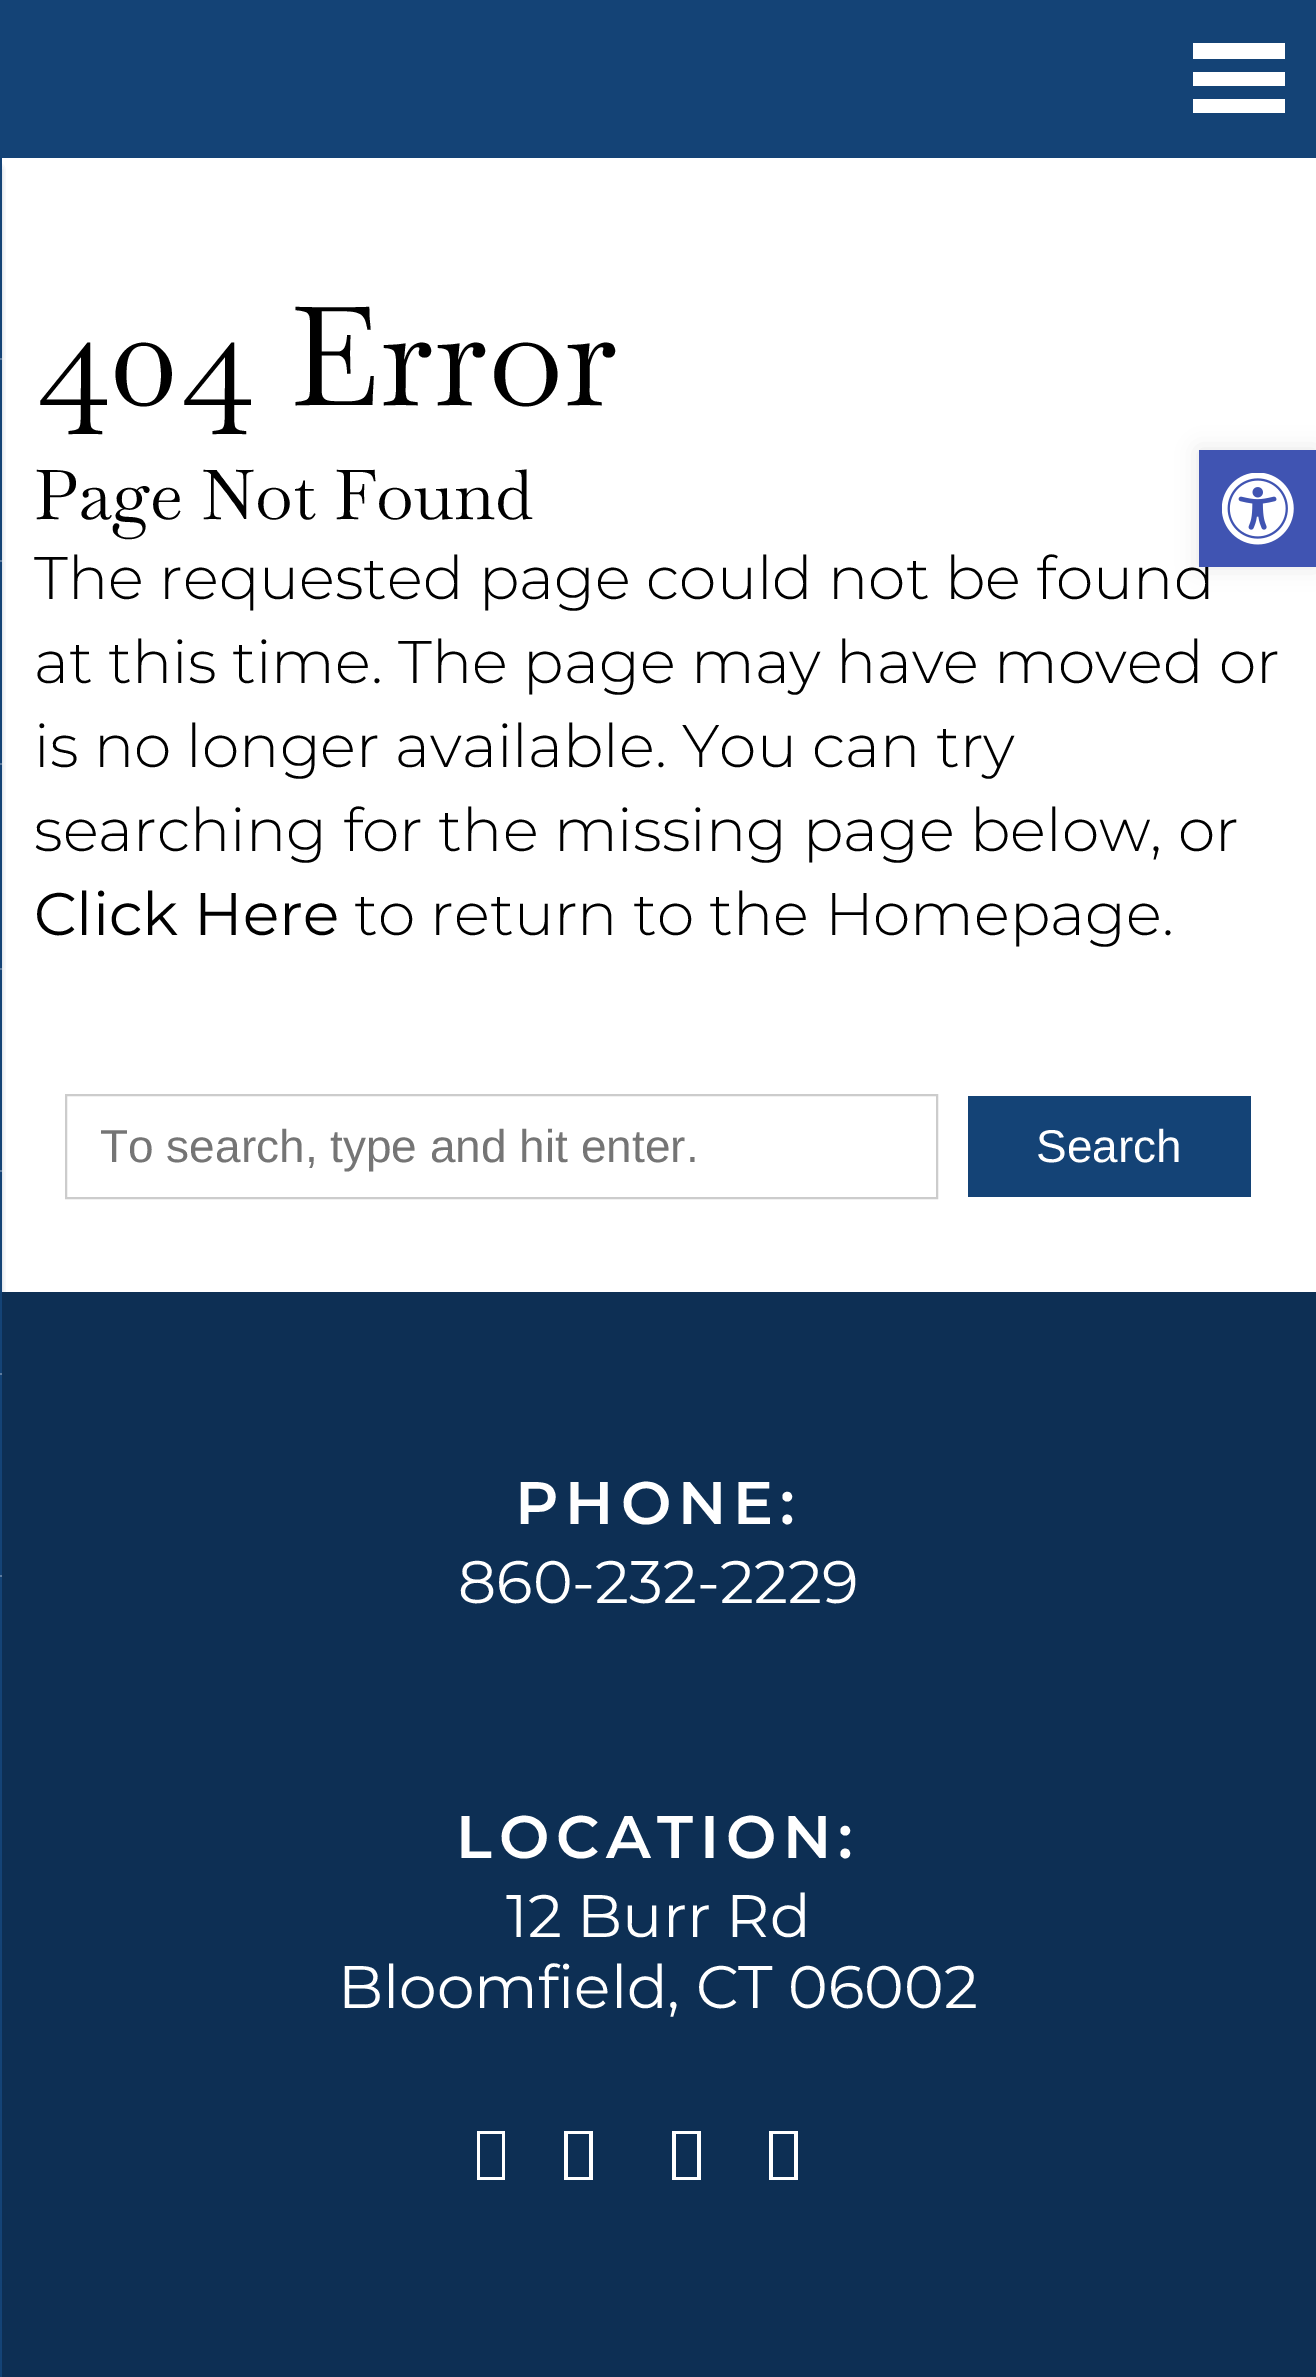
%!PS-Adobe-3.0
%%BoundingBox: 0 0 1316 2377
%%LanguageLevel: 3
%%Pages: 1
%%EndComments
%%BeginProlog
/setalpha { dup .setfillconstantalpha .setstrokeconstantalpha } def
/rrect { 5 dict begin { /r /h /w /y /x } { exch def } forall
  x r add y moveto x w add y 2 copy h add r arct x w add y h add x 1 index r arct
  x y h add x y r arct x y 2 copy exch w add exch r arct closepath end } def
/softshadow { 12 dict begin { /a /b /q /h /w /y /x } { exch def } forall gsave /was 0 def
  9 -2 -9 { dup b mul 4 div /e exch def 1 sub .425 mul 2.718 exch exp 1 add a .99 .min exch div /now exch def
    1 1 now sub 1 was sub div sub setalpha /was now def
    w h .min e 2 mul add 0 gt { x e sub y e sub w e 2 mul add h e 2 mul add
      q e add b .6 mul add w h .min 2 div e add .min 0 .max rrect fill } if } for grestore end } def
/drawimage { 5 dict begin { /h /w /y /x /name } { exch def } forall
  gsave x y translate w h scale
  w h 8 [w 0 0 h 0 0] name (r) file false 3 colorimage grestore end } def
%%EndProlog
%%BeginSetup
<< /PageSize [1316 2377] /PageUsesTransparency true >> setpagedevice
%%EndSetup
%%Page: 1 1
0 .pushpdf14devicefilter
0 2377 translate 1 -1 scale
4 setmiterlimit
1 setgray
0 0 1316 2377 rectfill
0.078 0.263 0.463 setrgbcolor
0 0 1316 158 rectfill
1 setgray
1193 43 92 70 rectfill
0.078 0.263 0.463 setrgbcolor
1193 59 92 13 rectfill
1193 86 92 13 rectfill
0.051 0.184 0.329 setrgbcolor
2 1292 1314 1085 rectfill
-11 169 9 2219 0 3.5 1 softshadow
0.078 0.263 0.463 setrgbcolor
0 158 2 2219 rectfill
0.357 0.482 0.624 setrgbcolor
0 358 2 2 rectfill
0 560 2 2 rectfill
0 763 2 2 rectfill
0 968 2 2 rectfill
0 1170 2 2 rectfill
0 1373 2 2 rectfill
0 1575 2 2 rectfill
0.8 setgray
2 setlinewidth
66 1095 871 103 rectstroke
0.078 0.263 0.463 setrgbcolor
968 1096 283 101 rectfill
0 setgray
1199 450 117 117 0 11 0.1 softshadow
1 setgray
newpath 477 2180 moveto 477 2131 lineto 505 2131 lineto 505 2180 lineto closepath 480 2177 moveto 502 2177 lineto 502 2134 lineto 480 2134 lineto closepath fill
newpath 564 2180 moveto 564 2131 lineto 593 2131 lineto 593 2180 lineto closepath 568 2177 moveto 589 2177 lineto 589 2134 lineto 568 2134 lineto closepath fill
newpath 672 2180 moveto 672 2131 lineto 701 2131 lineto 701 2180 lineto closepath 676 2177 moveto 697 2177 lineto 697 2134 lineto 676 2134 lineto closepath fill
newpath 769 2180 moveto 769 2131 lineto 798 2131 lineto 798 2180 lineto closepath 773 2177 moveto 794 2177 lineto 794 2134 lineto 773 2134 lineto closepath fill
/Baskervville-Regular [138 0 0 -138 0 0] selectfont
0 setgray
34 405 moveto (404 Error) show
/Baskervville-Regular [69 0 0 -69 0 0] selectfont
34 519 moveto (Page Not Found) show
/Montserrat-Light [59.9 0 0 -59.9 0 0] selectfont
34 599 moveto (The requested page could not be found) show
34 683 moveto (at this time. The page may have moved or) show
34 767 moveto (is no longer available. You can try) show
34 851 moveto (searching for the missing page below, or) show
/Montserrat-Regular [59.9 0 0 -59.9 0 0] selectfont
34 935 moveto (Click Here) show
/Montserrat-Light [59.9 0 0 -59.9 0 0] selectfont
354 935 moveto (to return to the Homepage.) show
/LiberationSans-Regular [46 0 0 -46 0 0] selectfont
0.459 setgray
100 1162 moveto (To search, type and hit enter.) show
1 setgray
1036 1162 moveto (Search) show
0.251 0.329 0.698 setrgbcolor
1199 450 117 117 rectfill
(images/1.raw) 1222 473 72 72 drawimage
/Montserrat-SemiBold [59.9 0 0 -59.9 0 0] selectfont
1 setgray
515 1524 moveto 6.75 0 (PHONE:) ashow
/Montserrat-Regular [59.9 0 0 -59.9 0 0] selectfont
458 1603 moveto (860-232-2229) show
/Montserrat-SemiBold [59.9 0 0 -59.9 0 0] selectfont
456 1858 moveto 6.75 0 (LOCATION:) ashow
/Montserrat-Regular [59.9 0 0 -59.9 0 0] selectfont
506 1937 moveto (12 Burr Rd) show
338 2008 moveto (Bloomfield, CT 06002) show
.poppdf14devicefilter showpage
%%EOF
